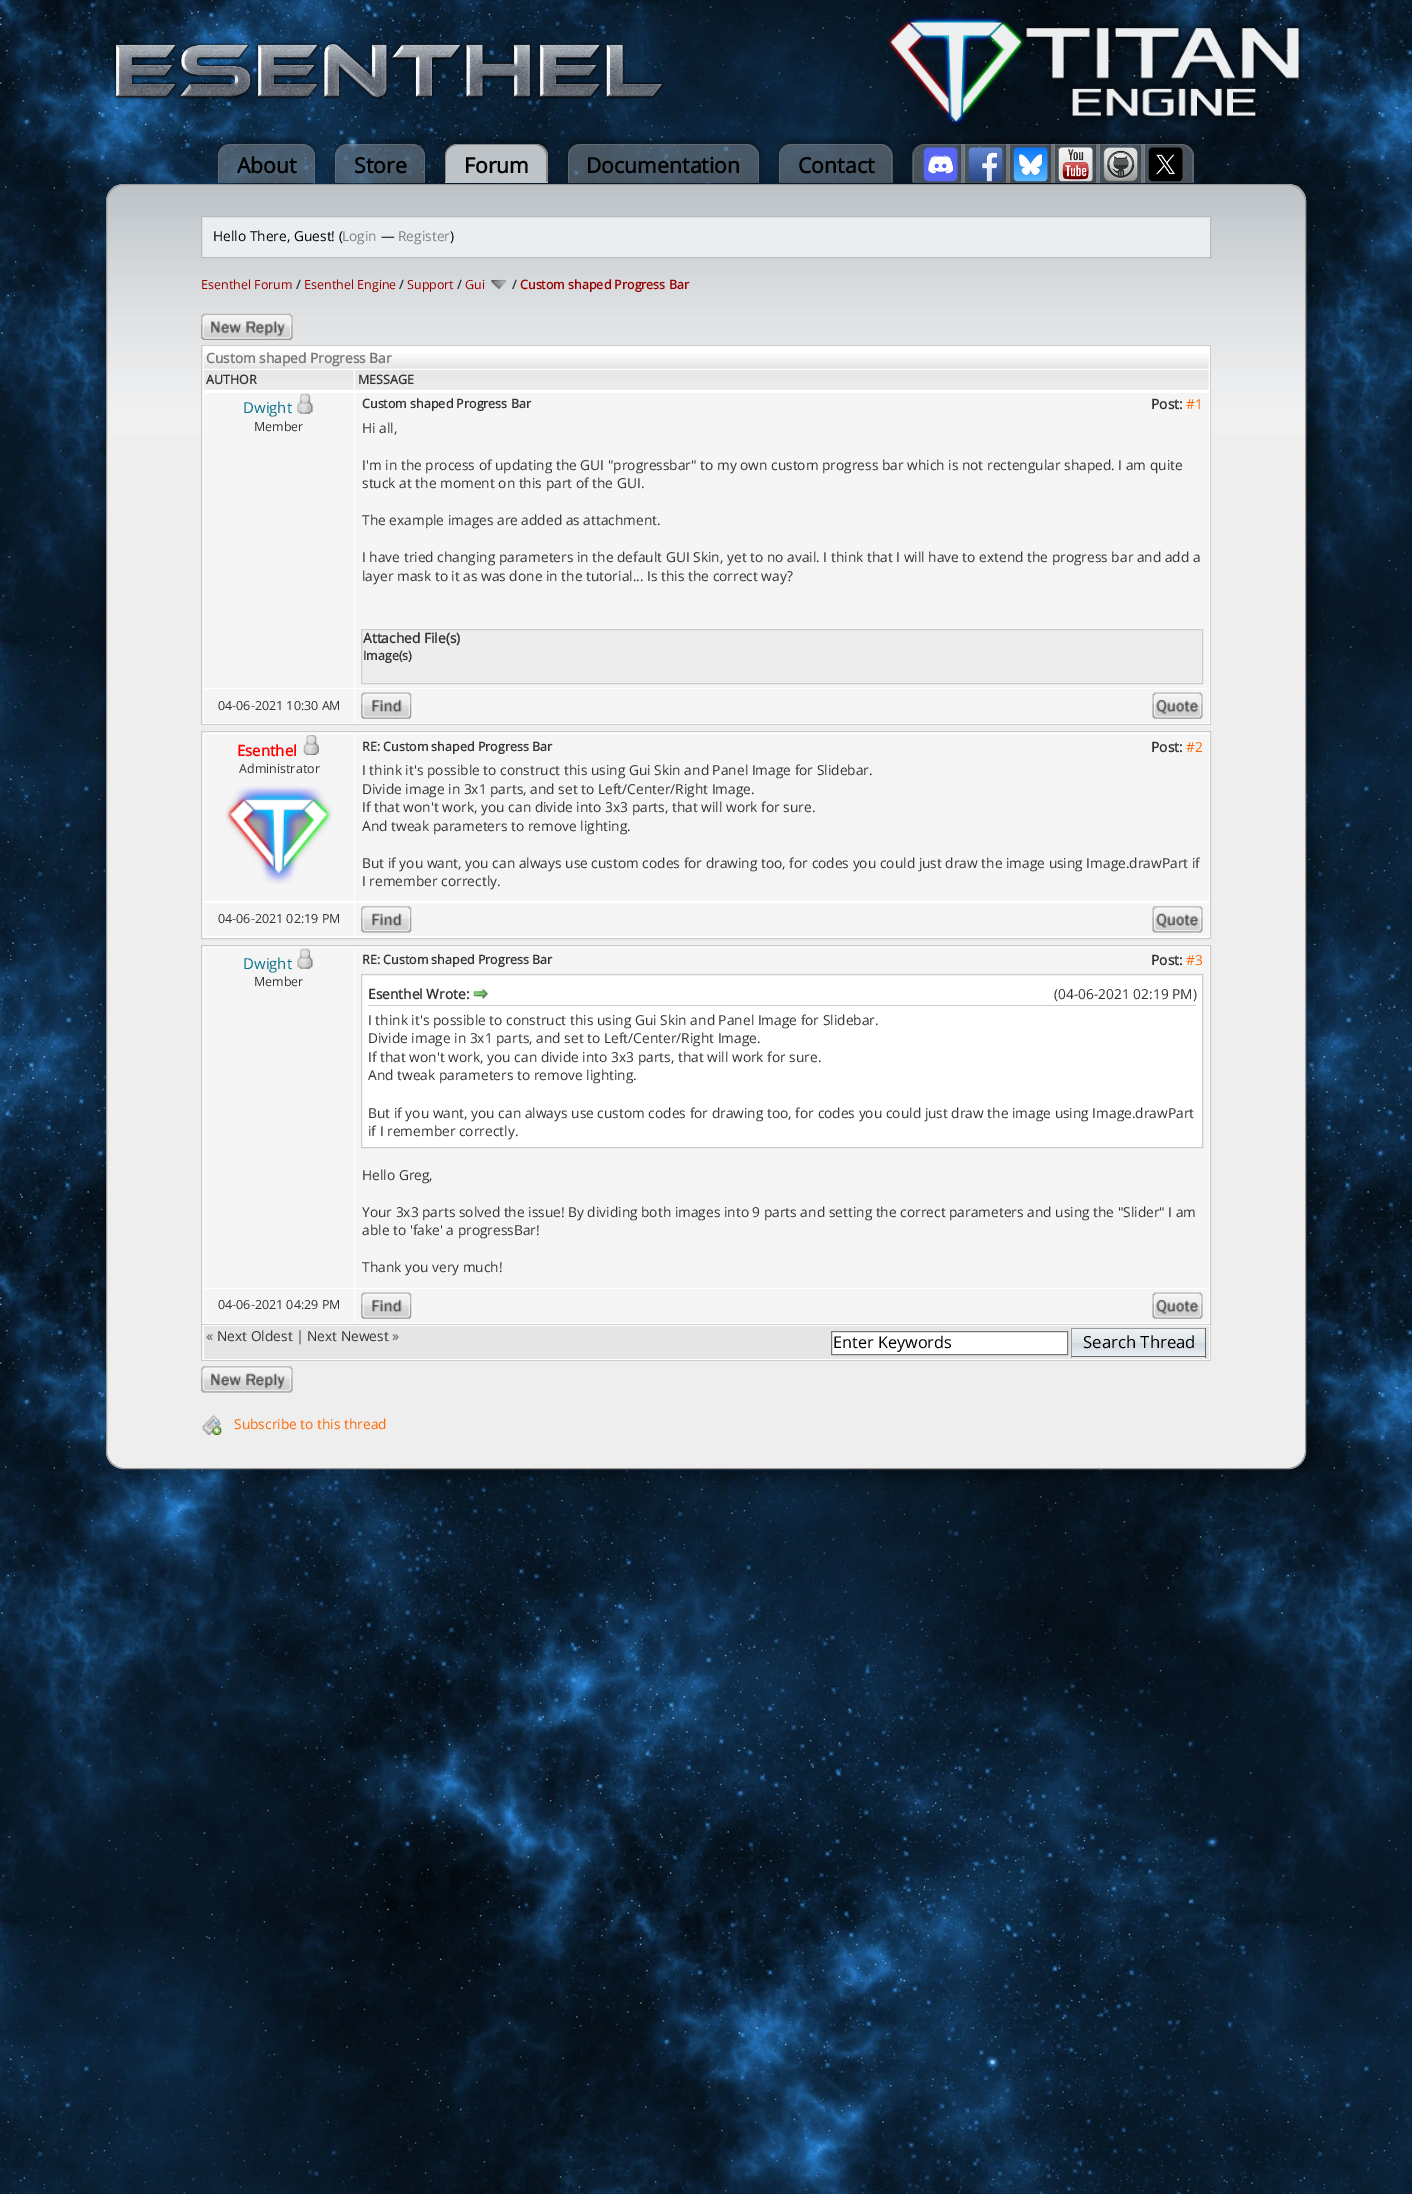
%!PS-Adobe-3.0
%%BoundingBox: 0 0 1412 2194
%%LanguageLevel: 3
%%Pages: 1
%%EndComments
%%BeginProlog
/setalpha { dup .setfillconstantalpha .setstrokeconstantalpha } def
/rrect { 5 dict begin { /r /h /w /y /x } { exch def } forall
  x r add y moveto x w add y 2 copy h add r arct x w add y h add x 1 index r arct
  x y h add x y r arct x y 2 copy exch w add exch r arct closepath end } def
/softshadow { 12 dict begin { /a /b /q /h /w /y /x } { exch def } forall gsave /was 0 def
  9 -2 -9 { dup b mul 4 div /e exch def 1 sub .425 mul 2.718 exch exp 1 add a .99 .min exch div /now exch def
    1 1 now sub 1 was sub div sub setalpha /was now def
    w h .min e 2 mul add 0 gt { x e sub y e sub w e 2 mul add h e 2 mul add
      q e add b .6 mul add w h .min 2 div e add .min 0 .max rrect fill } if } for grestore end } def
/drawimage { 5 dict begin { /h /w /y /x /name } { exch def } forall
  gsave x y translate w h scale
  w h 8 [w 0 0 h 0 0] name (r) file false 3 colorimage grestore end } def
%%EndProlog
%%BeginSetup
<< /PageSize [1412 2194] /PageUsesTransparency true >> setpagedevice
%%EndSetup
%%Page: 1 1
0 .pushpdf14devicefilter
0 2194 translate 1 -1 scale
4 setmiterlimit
1 setgray
0 0 1412 2194 rectfill
(images/1.raw) 0 0 1412 2194 drawimage
(images/2.raw) 113 42 551 58 drawimage
(images/3.raw) 888 16 415 110 drawimage
0 setgray
105 183 1210 1295 23 9.5 0.4 softshadow
0.933 setgray
106 184 1200 1285 18 rrect fill
(images/10.raw) 106 185 1201 250 drawimage
0.6 setgray
106.5 184.5 1199 1284 17.5 rrect stroke
gsave
newpath 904 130 moveto 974 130 lineto 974 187 lineto 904 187 lineto closepath 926 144 moveto 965 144 lineto 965 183 lineto 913 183 lineto 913 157 lineto 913 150 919 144 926 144 curveto closepath eoclip newpath
0 setgray
913 139 52 39 13 2.5 0.3 softshadow
grestore
0.4 setalpha
0.647 0.667 0.682 setrgbcolor
newpath 926 144 moveto 965 144 lineto 965 183 lineto 913 183 lineto 913 157 lineto 913 150 919 144 926 144 curveto closepath fill
0.55 setalpha
0.467 setgray
newpath 925 144 moveto 965 144 lineto 965 182 lineto 912 182 lineto 912 156 lineto 912 149 918 144 925 144 curveto closepath 925 145 moveto 964 145 lineto 964 182 lineto 914 182 lineto 914 156 lineto 914 150 919 145 925 145 curveto closepath eofill
1 setalpha
(images/4.raw) 923 147 35 35 drawimage
gsave
newpath 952 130 moveto 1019 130 lineto 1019 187 lineto 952 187 lineto closepath 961 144 moveto 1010 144 lineto 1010 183 lineto 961 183 lineto closepath eoclip newpath
0 setgray
961 139 49 39 0 2.5 0.3 softshadow
grestore
0.4 setalpha
0.647 0.667 0.682 setrgbcolor
961 144 49 39 rectfill
0.55 setalpha
0.467 setgray
newpath 961 144 moveto 1010 144 lineto 1009 145 lineto 962 145 lineto closepath fill
newpath 1010 144 moveto 1010 182.5 lineto 1009 182.5 lineto 1009 145 lineto closepath 961 182.5 moveto 961 144 lineto 962.5 145 lineto 962.5 182.5 lineto closepath fill
1 setalpha
(images/5.raw) 968 147 35 35 drawimage
gsave
newpath 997 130 moveto 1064 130 lineto 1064 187 lineto 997 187 lineto closepath 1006 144 moveto 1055 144 lineto 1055 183 lineto 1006 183 lineto closepath eoclip newpath
0 setgray
1006 139 49 39 0 2.5 0.3 softshadow
grestore
0.4 setalpha
0.647 0.667 0.682 setrgbcolor
1006 144 49 39 rectfill
0.55 setalpha
0.467 setgray
newpath 1006 144 moveto 1055 144 lineto 1054 145 lineto 1008 145 lineto closepath fill
newpath 1055 144 moveto 1055 182.5 lineto 1054 182.5 lineto 1054 145 lineto closepath 1006 182.5 moveto 1006 144 lineto 1007.5 145 lineto 1007.5 182.5 lineto closepath fill
1 setalpha
(images/6.raw) 1013 147 35 35 drawimage
gsave
newpath 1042 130 moveto 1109 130 lineto 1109 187 lineto 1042 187 lineto closepath 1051 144 moveto 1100 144 lineto 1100 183 lineto 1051 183 lineto closepath eoclip newpath
0 setgray
1051 139 49 39 0 2.5 0.3 softshadow
grestore
0.4 setalpha
0.647 0.667 0.682 setrgbcolor
1051 144 49 39 rectfill
0.55 setalpha
0.467 setgray
newpath 1051 144 moveto 1100 144 lineto 1099 145 lineto 1052 145 lineto closepath fill
newpath 1100 144 moveto 1100 182.5 lineto 1099 182.5 lineto 1099 145 lineto closepath 1051 182.5 moveto 1051 144 lineto 1052.5 145 lineto 1052.5 182.5 lineto closepath fill
1 setalpha
(images/7.raw) 1058 147 35 35 drawimage
gsave
newpath 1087 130 moveto 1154 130 lineto 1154 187 lineto 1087 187 lineto closepath 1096 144 moveto 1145 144 lineto 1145 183 lineto 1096 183 lineto closepath eoclip newpath
0 setgray
1096 139 49 39 0 2.5 0.3 softshadow
grestore
0.4 setalpha
0.647 0.667 0.682 setrgbcolor
1096 144 49 39 rectfill
0.55 setalpha
0.467 setgray
newpath 1096 144 moveto 1145 144 lineto 1144 145 lineto 1098 145 lineto closepath fill
newpath 1145 144 moveto 1145 182.5 lineto 1144 182.5 lineto 1144 145 lineto closepath 1096 182.5 moveto 1096 144 lineto 1097.5 145 lineto 1097.5 182.5 lineto closepath fill
1 setalpha
(images/8.raw) 1103 147 35 35 drawimage
gsave
newpath 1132 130 moveto 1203 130 lineto 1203 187 lineto 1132 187 lineto closepath 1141 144 moveto 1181 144 lineto 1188 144 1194 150 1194 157 curveto 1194 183 lineto 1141 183 lineto closepath eoclip newpath
0 setgray
1141 139 53 39 13 2.5 0.3 softshadow
grestore
0.4 setalpha
0.647 0.667 0.682 setrgbcolor
newpath 1141 144 moveto 1181 144 lineto 1188 144 1194 150 1194 157 curveto 1194 183 lineto 1141 183 lineto closepath fill
0.55 setalpha
0.467 setgray
newpath 1141 144 moveto 1181 144 lineto 1188 144 1194 149 1194 156 curveto 1194 182 lineto 1141 182 lineto closepath 1142 145 moveto 1181 145 lineto 1187 145 1192 150 1192 156 curveto 1192 182 lineto 1142 182 lineto closepath eofill
gsave
newpath 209 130 moveto 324 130 lineto 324 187 lineto 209 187 lineto closepath 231 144 moveto 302 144 lineto 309 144 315 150 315 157 curveto 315 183 lineto 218 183 lineto 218 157 lineto 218 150 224 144 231 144 curveto closepath eoclip newpath
1 setalpha
0 setgray
218 139 97 39 13 2.5 0.3 softshadow
grestore
0.4 setalpha
0.647 0.667 0.682 setrgbcolor
newpath 231 144 moveto 302 144 lineto 309 144 315 150 315 157 curveto 315 183 lineto 218 183 lineto 218 157 lineto 218 150 224 144 231 144 curveto closepath fill
0.55 setalpha
0.467 setgray
newpath 230 144 moveto 302 144 lineto 309 144 315 149 315 156 curveto 315 182 lineto 218 182 lineto 218 156 lineto 218 149 223 144 230 144 curveto closepath 230 145 moveto 302 145 lineto 309 145 314 150 314 156 curveto 314 182 lineto 219 182 lineto 219 156 lineto 219 150 224 145 230 145 curveto closepath eofill
gsave
newpath 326 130 moveto 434 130 lineto 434 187 lineto 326 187 lineto closepath 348 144 moveto 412 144 lineto 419 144 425 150 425 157 curveto 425 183 lineto 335 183 lineto 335 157 lineto 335 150 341 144 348 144 curveto closepath eoclip newpath
1 setalpha
0 setgray
335 139 90 39 13 2.5 0.3 softshadow
grestore
0.4 setalpha
0.647 0.667 0.682 setrgbcolor
newpath 348 144 moveto 412 144 lineto 419 144 425 150 425 157 curveto 425 183 lineto 335 183 lineto 335 157 lineto 335 150 341 144 348 144 curveto closepath fill
0.55 setalpha
0.467 setgray
newpath 348 144 moveto 412 144 lineto 419 144 425 149 425 156 curveto 425 182 lineto 335 182 lineto 335 156 lineto 335 149 341 144 348 144 curveto closepath 348 145 moveto 412 145 lineto 419 145 424 150 424 156 curveto 424 182 lineto 336 182 lineto 336 156 lineto 336 150 341 145 348 145 curveto closepath eofill
1 setalpha
0 setgray
445 139 103 39 13 2.5 0.3 softshadow
0.745 0.765 0.78 setrgbcolor
newpath 458 144 moveto 535 144 lineto 542 144 548 150 548 157 curveto 548 183 lineto 445 183 lineto 445 157 lineto 445 150 451 144 458 144 curveto closepath fill
0.533 setgray
newpath 458 144 moveto 535 144 lineto 542 144 548 149 548 156 curveto 548 182 lineto 445 182 lineto 445 156 lineto 445 149 451 144 458 144 curveto closepath 458 145 moveto 535 145 lineto 541 145 546 150 546 156 curveto 546 182 lineto 446 182 lineto 446 156 lineto 446 150 451 145 458 145 curveto closepath eofill
gsave
newpath 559 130 moveto 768 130 lineto 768 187 lineto 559 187 lineto closepath 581 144 moveto 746 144 lineto 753 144 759 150 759 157 curveto 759 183 lineto 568 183 lineto 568 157 lineto 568 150 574 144 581 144 curveto closepath eoclip newpath
0 setgray
568 139 191 39 13 2.5 0.3 softshadow
grestore
0.4 setalpha
0.647 0.667 0.682 setrgbcolor
newpath 581 144 moveto 746 144 lineto 753 144 759 150 759 157 curveto 759 183 lineto 568 183 lineto 568 157 lineto 568 150 574 144 581 144 curveto closepath fill
0.55 setalpha
0.467 setgray
newpath 580 144 moveto 746 144 lineto 753 144 759 149 759 156 curveto 759 182 lineto 568 182 lineto 568 156 lineto 568 149 573 144 580 144 curveto closepath 580 145 moveto 746 145 lineto 752 145 758 150 758 156 curveto 758 182 lineto 569 182 lineto 569 156 lineto 569 150 574 145 580 145 curveto closepath eofill
gsave
newpath 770 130 moveto 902 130 lineto 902 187 lineto 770 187 lineto closepath 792 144 moveto 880 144 lineto 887 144 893 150 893 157 curveto 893 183 lineto 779 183 lineto 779 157 lineto 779 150 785 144 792 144 curveto closepath eoclip newpath
1 setalpha
0 setgray
779 139 114 39 13 2.5 0.3 softshadow
grestore
0.4 setalpha
0.647 0.667 0.682 setrgbcolor
newpath 792 144 moveto 880 144 lineto 887 144 893 150 893 157 curveto 893 183 lineto 779 183 lineto 779 157 lineto 779 150 785 144 792 144 curveto closepath fill
0.55 setalpha
0.467 setgray
newpath 791 144 moveto 880 144 lineto 887 144 892 149 892 156 curveto 892 182 lineto 779 182 lineto 779 156 lineto 779 149 784 144 791 144 curveto closepath 791 145 moveto 880 145 lineto 886 145 891 150 891 156 curveto 891 182 lineto 780 182 lineto 780 156 lineto 780 150 785 145 791 145 curveto closepath eofill
1 setalpha
(images/9.raw) 1148 147 35 35 drawimage
0.918 0.933 0.941 setrgbcolor
newpath 201.5 216.5 moveto 1210.5 216.5 lineto 1210.5 257.5 lineto 201.5 257.5 lineto closepath gsave fill grestore
0.733 setgray
stroke
(images/11.raw) 491 279 16 10 drawimage
(images/12.raw) 201 313 92 27 drawimage
1 setgray
203 346 1007 378 rectfill
0.8 setgray
201 345 1010 1 rectfill
1210 345 1 380 rectfill
201 345 1 46 rectfill
(images/13.raw) 203 353 1006 16 drawimage
(images/14.raw) 203 370 151 20 drawimage
(images/15.raw) 355 370 854 20 drawimage
201 724 1010 1 rectfill
201 391 1 334 rectfill
0.961 setgray
204 393 150 295 rectfill
(images/16.raw) 297 393 16 21 drawimage
355 393 854 295 rectfill
0.929 setgray
newpath 361.5 629.5 moveto 1202.5 629.5 lineto 1202.5 683.5 lineto 361.5 683.5 lineto closepath gsave fill grestore
0.8 setgray
stroke
0.961 setgray
204 689 150 34 rectfill
355 689 854 34 rectfill
(images/17.raw) 361 692 51 27 drawimage
(images/18.raw) 1152 692 51 27 drawimage
1 setgray
newpath 201.5 731.5 moveto 1210.5 731.5 lineto 1210.5 938.5 lineto 201.5 938.5 lineto closepath gsave fill grestore
0.8 setgray
stroke
0.961 setgray
204 734 150 167 rectfill
(images/19.raw) 303 735 16 20 drawimage
(images/20.raw) 225 786 107 98 drawimage
355 734 854 167 rectfill
204 903 150 33 rectfill
355 903 854 33 rectfill
(images/21.raw) 361 906 51 27 drawimage
(images/22.raw) 1152 906 51 27 drawimage
1 setgray
newpath 201.5 945.5 moveto 1210.5 945.5 lineto 1210.5 1324.5 lineto 201.5 1324.5 lineto closepath gsave fill grestore
0.8 setgray
stroke
0.961 setgray
204 948 150 340 rectfill
(images/16.raw) 297 948 16 21 drawimage
355 948 854 340 rectfill
1 setgray
newpath 361.5 974.5 moveto 1202.5 974.5 lineto 1202.5 1147.5 lineto 361.5 1147.5 lineto closepath gsave fill grestore
0.8 setgray
stroke
368 1005 828 1 rectfill
(images/23.raw) 473 988 15 11 drawimage
0.961 setgray
204 1289 150 34 rectfill
355 1289 854 34 rectfill
(images/17.raw) 361 1292 51 27 drawimage
(images/18.raw) 1152 1292 51 27 drawimage
1 setgray
203 1325 1007 35 rectfill
0.8 setgray
1210 1325 1 36 rectfill
201 1360 1010 1 rectfill
201 1325 1 36 rectfill
0.898 setgray
204 1326 1005 33 rectfill
1 setgray
newpath 831.5 1331.5 moveto 1067.5 1331.5 lineto 1067.5 1354.5 lineto 831.5 1354.5 lineto closepath gsave fill grestore
0.459 0.475 0.471 setrgbcolor
stroke
gsave newpath 1072 1329 moveto 1205 1329 lineto 1205 1356 lineto 1072 1356 lineto closepath clip newpath
<< /ShadingType 2 /ColorSpace /DeviceRGB /Coords [1139 1329 1139 1356] /Extend [true true] /Function << /FunctionType 3 /Domain [0 1] /Functions [<< /FunctionType 2 /Domain [0 1] /C0 [0.933 0.949 0.957] /C1 [0.867 0.898 0.914] /N 1 >> << /FunctionType 2 /Domain [0 1] /C0 [0.867 0.898 0.914] /C1 [0.812 0.843 0.867] /N 1 >> << /FunctionType 2 /Domain [0 1] /C0 [0.812 0.843 0.867] /C1 [0.925 0.941 0.957] /N 1 >>] /Bounds [0.5 0.51] /Encode [0 1 0 1 0 1] >> >> shfill grestore
gsave newpath 1071 1357 moveto 1206 1357 lineto 1206 1358 lineto 1071 1358 lineto closepath clip newpath
<< /ShadingType 2 /ColorSpace /DeviceRGB /Coords [1139 1356 1139 1384] /Extend [true true] /Function << /FunctionType 3 /Domain [0 1] /Functions [<< /FunctionType 2 /Domain [0 1] /C0 [0.933 0.949 0.957] /C1 [0.867 0.898 0.914] /N 1 >> << /FunctionType 2 /Domain [0 1] /C0 [0.867 0.898 0.914] /C1 [0.812 0.843 0.867] /N 1 >> << /FunctionType 2 /Domain [0 1] /C0 [0.812 0.843 0.867] /C1 [0.925 0.941 0.957] /N 1 >>] /Bounds [0.5 0.51] /Encode [0 1 0 1 0 1] >> >> shfill grestore
0.6 setgray
1071 1328 135 1 rectfill
0.4 setgray
1205 1328 1 30 rectfill
1071 1356 135 1 rectfill
0.6 setgray
1071 1328 1 30 rectfill
(images/24.raw) 201 1366 92 27 drawimage
(images/25.raw) 202 1415 20 20 drawimage
/OpenSans-Bold [21.25 0 0 -21.25 0 0] selectfont
0 setgray
237 173 moveto (About) show
354 173 moveto (Store) show
464 173 moveto (Forum) show
586 173 moveto (Documentation) show
798 173 moveto (Contact) show
/OpenSans-Regular [13.75 0 0 -13.75 0 0] selectfont
213 241 moveto (Hello There, Guest! \() show
0.502 setgray
342 241 moveto (Login) show
0 setgray
381 241 moveto (—) show
0.502 setgray
398 241 moveto (Register) show
0 setgray
450 241 moveto (\)) show
/OpenSans-Regular [12.5 0 0 -12.5 0 0] selectfont
0.6 0 0 setrgbcolor
201 289 moveto (Esenthel Forum) show
/OpenSans-Bold [12.5 0 0 -12.5 0 0] selectfont
0.2 setgray
296 289 moveto (/) show
/OpenSans-Regular [12.5 0 0 -12.5 0 0] selectfont
0.6 0 0 setrgbcolor
304 289 moveto (Esenthel Engine) show
/OpenSans-Bold [12.5 0 0 -12.5 0 0] selectfont
0.2 setgray
399 289 moveto (/) show
/OpenSans-Regular [12.5 0 0 -12.5 0 0] selectfont
0.6 0 0 setrgbcolor
407 289 moveto (Support) show
/OpenSans-Bold [12.5 0 0 -12.5 0 0] selectfont
0.2 setgray
457 289 moveto (/) show
/OpenSans-Regular [12.5 0 0 -12.5 0 0] selectfont
0.6 0 0 setrgbcolor
465 289 moveto (Gui) show
/OpenSans-Bold [12.5 0 0 -12.5 0 0] selectfont
0.2 setgray
512 289 moveto (/) show
0.6 0 0 setrgbcolor
520 289 moveto (Custom shaped Progress Bar) show
/OpenSans-Bold [13.75 0 0 -13.75 0 0] selectfont
0.459 0.475 0.471 setrgbcolor
206 363 moveto (Custom shaped Progress Bar) show
/OpenSans-Bold [12.5 0 0 -12.5 0 0] selectfont
0.2 setgray
206 384 moveto (AUTHOR) show
358 384 moveto (MESSAGE) show
/OpenSans-Regular [15 0 0 -15 0 0] selectfont
0.047 0.447 0.545 setrgbcolor
243 413 moveto (Dwight) show
/OpenSans-Regular [12.5 0 0 -12.5 0 0] selectfont
0.2 setgray
254 431 moveto (Member) show
/OpenSans-Bold [12.5 0 0 -12.5 0 0] selectfont
362 408 moveto (Custom shaped Progress Bar) show
/OpenSans-Bold [13.75 0 0 -13.75 0 0] selectfont
1151 409 moveto (Post:) show
/OpenSans-Regular [13.75 0 0 -13.75 0 0] selectfont
1 0.4 0 setrgbcolor
1186 409 moveto (#1) show
0.2 setgray
362 433 moveto (Hi all,) show
362 470 moveto (I'm in the process of updating the GUI "progressbar" to my own custom progress bar which is not rectengular shaped. I am quite) show
362 488 moveto (stuck at the moment on this part of the GUI.) show
362 525 moveto (The example images are added as attachment.) show
362 562 moveto (I have tried changing parameters in the default GUI Skin, yet to no avail. I think that I will have to extend the progress bar and add a) show
362 581 moveto (layer mask to it as was done in the tutorial... Is this the correct way?) show
/OpenSans-Bold [13.75 0 0 -13.75 0 0] selectfont
363 643 moveto (Attached File\(s\)) show
/OpenSans-Bold [12.5 0 0 -12.5 0 0] selectfont
363 660 moveto (Image\(s\)) show
/OpenSans-Regular [12.5 0 0 -12.5 0 0] selectfont
218 710 moveto (04-06-2021 10:30 AM) show
/OpenSans-Bold [15 0 0 -15 0 0] selectfont
1 0 0 setrgbcolor
237 756 moveto (Esenthel) show
/OpenSans-Regular [12.5 0 0 -12.5 0 0] selectfont
0.2 setgray
239 773 moveto (Administrator) show
/OpenSans-Bold [12.5 0 0 -12.5 0 0] selectfont
362 751 moveto (RE: Custom shaped Progress Bar) show
/OpenSans-Bold [13.75 0 0 -13.75 0 0] selectfont
1151 752 moveto (Post:) show
/OpenSans-Regular [13.75 0 0 -13.75 0 0] selectfont
1 0.4 0 setrgbcolor
1186 752 moveto (#2) show
0.2 setgray
362 775 moveto (I think it's possible to construct this using Gui Skin and Panel Image for Slidebar.) show
362 794 moveto (Divide image in 3x1 parts, and set to Left/Center/Right Image.) show
362 812 moveto (If that won't work, you can divide into 3x3 parts, that will work for sure.) show
362 831 moveto (And tweak parameters to remove lighting.) show
362 868 moveto (But if you want, you can always use custom codes for drawing too, for codes you could just draw the image using Image.drawPart if) show
362 886 moveto (I remember correctly.) show
/OpenSans-Regular [12.5 0 0 -12.5 0 0] selectfont
218 923 moveto (04-06-2021 02:19 PM) show
/OpenSans-Regular [15 0 0 -15 0 0] selectfont
0.047 0.447 0.545 setrgbcolor
243 969 moveto (Dwight) show
/OpenSans-Regular [12.5 0 0 -12.5 0 0] selectfont
0.2 setgray
254 986 moveto (Member) show
/OpenSans-Bold [12.5 0 0 -12.5 0 0] selectfont
362 964 moveto (RE: Custom shaped Progress Bar) show
/OpenSans-Bold [13.75 0 0 -13.75 0 0] selectfont
1151 965 moveto (Post:) show
/OpenSans-Regular [13.75 0 0 -13.75 0 0] selectfont
1 0.4 0 setrgbcolor
1186 965 moveto (#3) show
/OpenSans-Bold [13.75 0 0 -13.75 0 0] selectfont
0.2 setgray
368 999 moveto (Esenthel Wrote:) show
/OpenSans-Regular [13.75 0 0 -13.75 0 0] selectfont
1054 999 moveto (\(04-06-2021 02:19 PM\)) show
368 1025 moveto (I think it's possible to construct this using Gui Skin and Panel Image for Slidebar.) show
368 1043 moveto (Divide image in 3x1 parts, and set to Left/Center/Right Image.) show
368 1062 moveto (If that won't work, you can divide into 3x3 parts, that will work for sure.) show
368 1080 moveto (And tweak parameters to remove lighting.) show
368 1118 moveto (But if you want, you can always use custom codes for drawing too, for codes you could just draw the image using Image.drawPart) show
368 1136 moveto (if I remember correctly.) show
362 1180 moveto (Hello Greg,) show
362 1217 moveto (Your 3x3 parts solved the issue! By dividing both images into 9 parts and setting the correct parameters and using the "Slider" I am) show
362 1235 moveto (able to 'fake' a progressBar!) show
362 1272 moveto (Thank you very much!) show
/OpenSans-Regular [12.5 0 0 -12.5 0 0] selectfont
218 1309 moveto (04-06-2021 04:29 PM) show
/OpenSans-Bold [13.75 0 0 -13.75 0 0] selectfont
0.459 0.475 0.471 setrgbcolor
206 1341 moveto («) show
/OpenSans-Regular [13.75 0 0 -13.75 0 0] selectfont
0.2 setgray
217 1341 moveto (Next Oldest) show
/OpenSans-Bold [13.75 0 0 -13.75 0 0] selectfont
0.459 0.475 0.471 setrgbcolor
296 1341 moveto (|) show
/OpenSans-Regular [13.75 0 0 -13.75 0 0] selectfont
0.2 setgray
307 1341 moveto (Next Newest) show
/OpenSans-Bold [13.75 0 0 -13.75 0 0] selectfont
0.459 0.475 0.471 setrgbcolor
392 1341 moveto (») show
/OpenSans-Regular [16.25 0 0 -16.25 0 0] selectfont
0 setgray
833 1348 moveto (Enter Keywords) show
/OpenSans-Regular [16.75 0 0 -16.75 0 0] selectfont
1083 1348 moveto (Search Thread) show
/OpenSans-Regular [13.75 0 0 -13.75 0 0] selectfont
1 0.4 0 setrgbcolor
234 1429 moveto (Subscribe to this thread) show
.poppdf14devicefilter showpage
%%EOF
